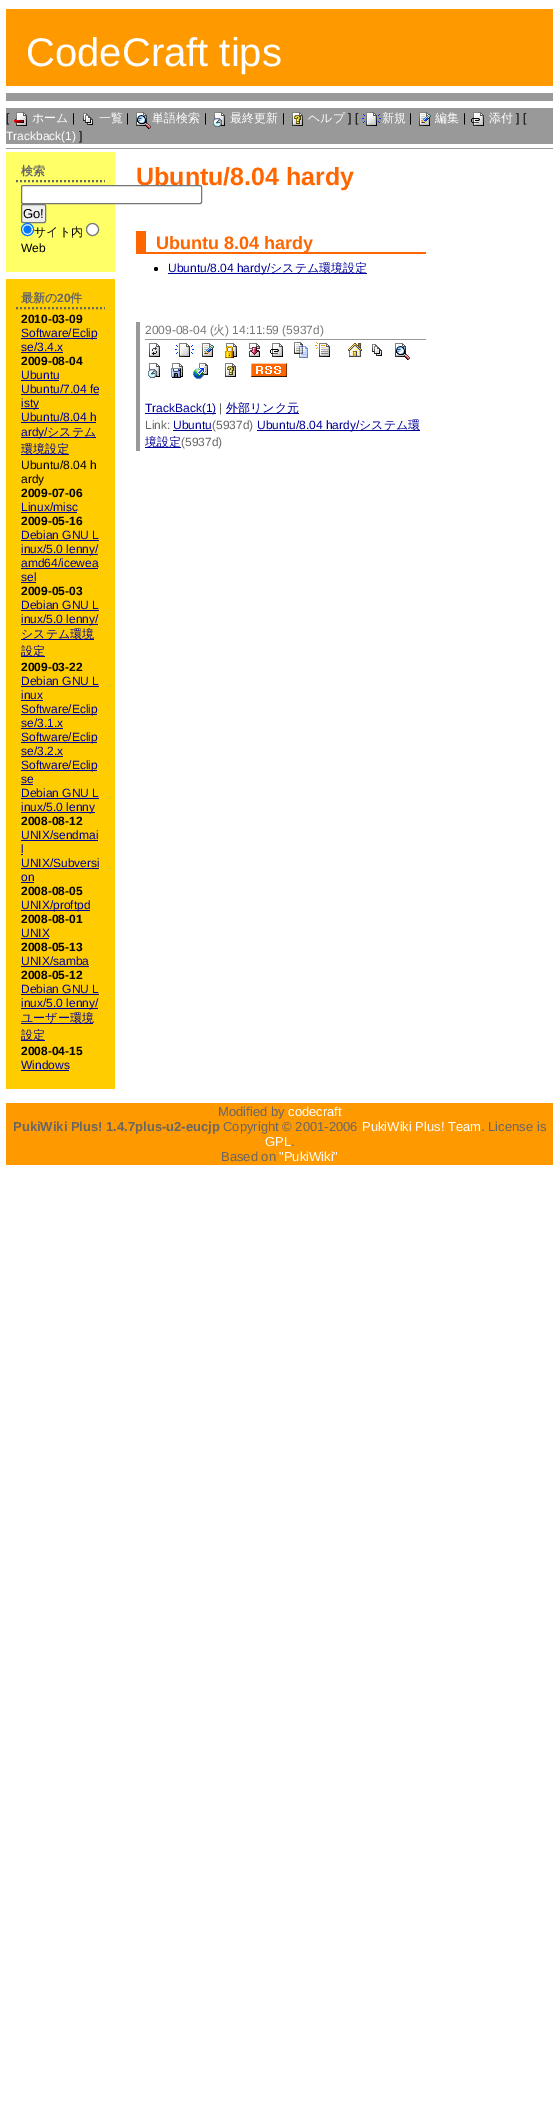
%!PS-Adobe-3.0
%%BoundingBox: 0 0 559 2112
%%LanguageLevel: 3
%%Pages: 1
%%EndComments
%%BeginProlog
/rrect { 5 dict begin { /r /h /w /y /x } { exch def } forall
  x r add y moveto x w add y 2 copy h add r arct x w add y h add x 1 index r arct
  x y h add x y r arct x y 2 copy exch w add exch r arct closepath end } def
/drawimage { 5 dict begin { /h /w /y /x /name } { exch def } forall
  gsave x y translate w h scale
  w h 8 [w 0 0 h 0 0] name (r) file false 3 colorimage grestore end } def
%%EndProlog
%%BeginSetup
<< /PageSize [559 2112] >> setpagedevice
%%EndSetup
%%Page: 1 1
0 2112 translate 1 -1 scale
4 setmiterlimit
1 setgray
0 0 559 2112 rectfill
1 0.6 0 setrgbcolor
6 9 547 77 rectfill
0.6 setgray
6 93 547 8 rectfill
6 108 547 36 rectfill
(images/1.raw) 14 112 13 14 drawimage
(images/2.raw) 83 113 10 12 drawimage
(images/3.raw) 136 112 15 17 drawimage
(images/4.raw) 213 112 12 15 drawimage
(images/5.raw) 292 112 11 14 drawimage
(images/6.raw) 362 112 19 14 drawimage
(images/7.raw) 419 112 12 14 drawimage
(images/8.raw) 471 112 13 14 drawimage
6 148 547 1 rectfill
1 1 0.4 setrgbcolor
6 152 109 120 rectfill
0.4 setgray
2 setlinewidth
[2 2] 0 setdash
newpath 16 181 moveto 105 181 lineto stroke
0.937 setgray
21.5 204.5 24 18 1.5 rrect gsave fill grestore
0.463 setgray
1 setlinewidth
[] 0 setdash
stroke
1 setgray
newpath 27.5 229.5 6 0 360 arc closepath gsave fill grestore
0 0.459 1 setrgbcolor
stroke
newpath 27.5 229.5 4 0 360 arc closepath fill
1 setgray
newpath 92.5 229.5 6 0 360 arc closepath gsave fill grestore
0.463 setgray
stroke
1 0.8 0 setrgbcolor
6 279 109 810 rectfill
0.4 setgray
2 setlinewidth
[2 2] 0 setdash
newpath 16 308 moveto 105 308 lineto stroke
0 0 0.6 setrgbcolor
21 338 76 1 rectfill
21 352 42 1 rectfill
21 380 38 1 rectfill
21 394 78 1 rectfill
21 408 18 1 rectfill
21 422 75 1 rectfill
21 437 75 1 rectfill
21 454 48 1 rectfill
21 512 56 1 rectfill
21 540 78 1 rectfill
21 554 77 1 rectfill
21 568 77 1 rectfill
21 582 15 1 rectfill
21 610 78 1 rectfill
21 624 77 1 rectfill
21 639 73 1 rectfill
21 656 24 1 rectfill
21 686 78 1 rectfill
21 700 22 1 rectfill
21 714 76 1 rectfill
21 728 42 1 rectfill
21 742 76 1 rectfill
21 756 42 1 rectfill
21 770 76 1 rectfill
21 784 12 1 rectfill
21 798 78 1 rectfill
21 812 74 1 rectfill
21 840 77 1 rectfill
21 854 2 1 rectfill
21 868 78 1 rectfill
21 882 13 1 rectfill
21 910 69 1 rectfill
21 938 28 1 rectfill
21 966 68 1 rectfill
21 994 78 1 rectfill
21 1008 77 1 rectfill
21 1023 72 1 rectfill
21 1040 24 1 rectfill
21 1070 48 1 rectfill
1 0.4 0 setrgbcolor
146 252 280 2 rectfill
136 231 10 23 rectfill
0 setgray
newpath 156 269 2 0 360 arc closepath fill
0 0 0.6 setrgbcolor
168 273 199 1 rectfill
0.6 setgray
136 322 4 129 rectfill
145 339 281 1 rectfill
(images/9.raw) 149 343 11 14 drawimage
(images/10.raw) 175 343 19 14 drawimage
(images/11.raw) 202 343 12 14 drawimage
(images/12.raw) 225 343 12 15 drawimage
(images/13.raw) 249 343 11 14 drawimage
(images/14.raw) 270 343 13 14 drawimage
(images/15.raw) 294 342 14 16 drawimage
(images/16.raw) 315 342 15 15 drawimage
(images/17.raw) 348 343 14 14 drawimage
(images/18.raw) 372 344 10 12 drawimage
(images/19.raw) 395 343 15 17 drawimage
(images/20.raw) 148 363 12 15 drawimage
(images/21.raw) 171 363 12 15 drawimage
(images/22.raw) 193 363 15 16 drawimage
(images/23.raw) 225 363 11 14 drawimage
(images/24.raw) 251 363 36 14 drawimage
0 0 0.6 setrgbcolor
145 413 71 1 rectfill
226 413 73 1 rectfill
173 430 39 1 rectfill
257 430 163 1 rectfill
145 447 36 1 rectfill
1 0.6 0 setrgbcolor
6 1103 547 62 rectfill
/LiberationSans-Regular [40 0 0 -40 0 0] selectfont
1 setgray
26 66 moveto (CodeCraft tips) show
/LiberationSans-Regular [12 0 0 -12 0 0] selectfont
0 setgray
6 122 moveto ([) show
/WenQuanYiZenHei-Medium [12 0 0 -12 0 0] selectfont
1 setgray
32 122 moveto (ホーム) show
/LiberationSans-Regular [12 0 0 -12 0 0] selectfont
0 setgray
72 122 moveto (|) show
/WenQuanYiZenHei-Medium [12 0 0 -12 0 0] selectfont
1 setgray
99 122 moveto (一覧) show
/LiberationSans-Regular [12 0 0 -12 0 0] selectfont
0 setgray
126 122 moveto (|) show
/WenQuanYiZenHei-Medium [12 0 0 -12 0 0] selectfont
1 setgray
152 122 moveto (単語検索) show
/LiberationSans-Regular [12 0 0 -12 0 0] selectfont
0 setgray
204 122 moveto (|) show
/WenQuanYiZenHei-Medium [12 0 0 -12 0 0] selectfont
1 setgray
230 122 moveto (最終更新) show
/LiberationSans-Regular [12 0 0 -12 0 0] selectfont
0 setgray
282 122 moveto (|) show
/WenQuanYiZenHei-Medium [12 0 0 -12 0 0] selectfont
1 setgray
308 122 moveto (ヘルプ) show
/LiberationSans-Regular [12 0 0 -12 0 0] selectfont
0 setgray
348 122 moveto (] [) show
/WenQuanYiZenHei-Medium [12 0 0 -12 0 0] selectfont
1 setgray
382 122 moveto (新規) show
/LiberationSans-Regular [12 0 0 -12 0 0] selectfont
0 setgray
409 122 moveto (|) show
/WenQuanYiZenHei-Medium [12 0 0 -12 0 0] selectfont
1 setgray
435 122 moveto (編集) show
/LiberationSans-Regular [12 0 0 -12 0 0] selectfont
0 setgray
463 122 moveto (|) show
/WenQuanYiZenHei-Medium [12 0 0 -12 0 0] selectfont
1 setgray
489 122 moveto (添付) show
/LiberationSans-Regular [12 0 0 -12 0 0] selectfont
0 setgray
516 122 moveto (] [) show
1 setgray
6 140 moveto (Trackback\(1\)) show
0 setgray
79 140 moveto (]) show
/WenQuanYiZenHei-Bold [12 0 0 -12 0 0] selectfont
0.4 setgray
21 175 moveto (検索) show
/LiberationSans-Regular [13 0 0 -13 0 0] selectfont
0 setgray
23 218 moveto (Go!) show
/WenQuanYiZenHei-Medium [12 0 0 -12 0 0] selectfont
34 236 moveto (サイト内) show
/LiberationSans-Regular [12 0 0 -12 0 0] selectfont
21 252 moveto (Web) show
/WenQuanYiZenHei-Bold [12 0 0 -12 0 0] selectfont
0.4 setgray
21 302 moveto (最新の) show
/LiberationSans-Bold [12 0 0 -12 0 0] selectfont
57 302 moveto (20) show
/WenQuanYiZenHei-Bold [12 0 0 -12 0 0] selectfont
70 302 moveto (件) show
/LiberationSans-Bold [12 0 0 -12 0 0] selectfont
0 setgray
21 323 moveto (2010-03-09) show
/LiberationSans-Regular [12 0 0 -12 0 0] selectfont
0 0 0.6 setrgbcolor
21 337 moveto (Software/Eclip) show
21 351 moveto (se/3.4.x) show
/LiberationSans-Bold [12 0 0 -12 0 0] selectfont
0 setgray
21 365 moveto (2009-08-04) show
/LiberationSans-Regular [12 0 0 -12 0 0] selectfont
0 0 0.6 setrgbcolor
21 379 moveto (Ubuntu) show
21 393 moveto (Ubuntu/7.04 fe) show
21 407 moveto (isty) show
21 421 moveto (Ubuntu/8.04 h) show
21 436 moveto (ardy/) show
/WenQuanYiZenHei-Medium [12 0 0 -12 0 0] selectfont
47 436 moveto (システム) show
gsave
21 410 79 48 rectclip
21 453 moveto (環境設定) show
grestore
/LiberationSans-Regular [12 0 0 -12 0 0] selectfont
0 setgray
21 469 moveto (Ubuntu/8.04 h) show
21 483 moveto (ardy) show
/LiberationSans-Bold [12 0 0 -12 0 0] selectfont
21 497 moveto (2009-07-06) show
/LiberationSans-Regular [12 0 0 -12 0 0] selectfont
0 0 0.6 setrgbcolor
21 511 moveto (Linux/misc) show
/LiberationSans-Bold [12 0 0 -12 0 0] selectfont
0 setgray
21 525 moveto (2009-05-16) show
/LiberationSans-Regular [12 0 0 -12 0 0] selectfont
0 0 0.6 setrgbcolor
21 539 moveto (Debian GNU L) show
21 553 moveto (inux/5.0 lenny/) show
21 567 moveto (amd64/icewea) show
21 581 moveto (sel) show
/LiberationSans-Bold [12 0 0 -12 0 0] selectfont
0 setgray
21 595 moveto (2009-05-03) show
/LiberationSans-Regular [12 0 0 -12 0 0] selectfont
0 0 0.6 setrgbcolor
21 609 moveto (Debian GNU L) show
21 623 moveto (inux/5.0 lenny/) show
/WenQuanYiZenHei-Medium [12 0 0 -12 0 0] selectfont
21 638 moveto (システム環境) show
gsave
21 598 79 62 rectclip
21 655 moveto (設定) show
grestore
/LiberationSans-Bold [12 0 0 -12 0 0] selectfont
0 setgray
21 671 moveto (2009-03-22) show
/LiberationSans-Regular [12 0 0 -12 0 0] selectfont
0 0 0.6 setrgbcolor
21 685 moveto (Debian GNU L) show
21 699 moveto (inux) show
21 713 moveto (Software/Eclip) show
21 727 moveto (se/3.1.x) show
21 741 moveto (Software/Eclip) show
21 755 moveto (se/3.2.x) show
21 769 moveto (Software/Eclip) show
21 783 moveto (se) show
21 797 moveto (Debian GNU L) show
21 811 moveto (inux/5.0 lenny) show
/LiberationSans-Bold [12 0 0 -12 0 0] selectfont
0 setgray
21 825 moveto (2008-08-12) show
/LiberationSans-Regular [12 0 0 -12 0 0] selectfont
0 0 0.6 setrgbcolor
21 839 moveto (UNIX/sendmai) show
21 853 moveto (l) show
21 867 moveto (UNIX/Subversi) show
21 881 moveto (on) show
/LiberationSans-Bold [12 0 0 -12 0 0] selectfont
0 setgray
21 895 moveto (2008-08-05) show
/LiberationSans-Regular [12 0 0 -12 0 0] selectfont
0 0 0.6 setrgbcolor
21 909 moveto (UNIX/proftpd) show
/LiberationSans-Bold [12 0 0 -12 0 0] selectfont
0 setgray
21 923 moveto (2008-08-01) show
/LiberationSans-Regular [12 0 0 -12 0 0] selectfont
0 0 0.6 setrgbcolor
21 937 moveto (UNIX) show
/LiberationSans-Bold [12 0 0 -12 0 0] selectfont
0 setgray
21 951 moveto (2008-05-13) show
/LiberationSans-Regular [12 0 0 -12 0 0] selectfont
0 0 0.6 setrgbcolor
21 965 moveto (UNIX/samba) show
/LiberationSans-Bold [12 0 0 -12 0 0] selectfont
0 setgray
21 979 moveto (2008-05-12) show
/LiberationSans-Regular [12 0 0 -12 0 0] selectfont
0 0 0.6 setrgbcolor
21 993 moveto (Debian GNU L) show
21 1007 moveto (inux/5.0 lenny/) show
/WenQuanYiZenHei-Medium [12 0 0 -12 0 0] selectfont
21 1022 moveto (ユーザー環境) show
gsave
21 982 79 62 rectclip
21 1039 moveto (設定) show
grestore
/LiberationSans-Bold [12 0 0 -12 0 0] selectfont
0 setgray
21 1055 moveto (2008-04-15) show
/LiberationSans-Regular [12 0 0 -12 0 0] selectfont
0 0 0.6 setrgbcolor
21 1069 moveto (Windows) show
/LiberationSans-Bold [25 0 0 -25 0 0] selectfont
1 0.4 0 setrgbcolor
136 185 moveto (Ubuntu/8.04 hardy) show
1 setgray
21.5 185.5 180 18 1.5 rrect gsave fill grestore
0.463 setgray
1 setlinewidth
[] 0 setdash
stroke
/LiberationSans-Bold [18 0 0 -18 0 0] selectfont
1 0.4 0 setrgbcolor
156 249 moveto (Ubuntu 8.04 hardy) show
/LiberationSans-Regular [12 0 0 -12 0 0] selectfont
0 0 0.6 setrgbcolor
168 272 moveto (Ubuntu/8.04 hardy/) show
/WenQuanYiZenHei-Medium [12 0 0 -12 0 0] selectfont
270 272 moveto (システム環境設定) show
/LiberationSans-Regular [12 0 0 -12 0 0] selectfont
0.467 setgray
145 334 moveto (2009-08-04 \() show
/WenQuanYiZenHei-Medium [12 0 0 -12 0 0] selectfont
213 334 moveto (火) show
/LiberationSans-Regular [12 0 0 -12 0 0] selectfont
225 334 moveto (\) 14:11:59 \(5937d\)) show
0 0 0.6 setrgbcolor
145 412 moveto (TrackBack\(1\)) show
0.4 setgray
219 412 moveto (|) show
/WenQuanYiZenHei-Medium [12 0 0 -12 0 0] selectfont
0 0 0.6 setrgbcolor
226 412 moveto (外部リンク元) show
/LiberationSans-Regular [12 0 0 -12 0 0] selectfont
0.4 setgray
145 429 moveto (Link:) show
0 0 0.6 setrgbcolor
173 429 moveto (Ubuntu) show
0.4 setgray
212 429 moveto (\(5937d\)) show
0 0 0.6 setrgbcolor
257 429 moveto (Ubuntu/8.04 hardy/) show
/WenQuanYiZenHei-Medium [12 0 0 -12 0 0] selectfont
359 429 moveto (システム環) show
145 446 moveto (境設定) show
/LiberationSans-Regular [12 0 0 -12 0 0] selectfont
0.4 setgray
181 446 moveto (\(5937d\)) show
/LiberationSans-Regular [13 0 0 -13 0 0] selectfont
218 1116 moveto (Modified by) show
1 setgray
288 1116 moveto (codecraft) show
/LiberationSans-Bold [13 0 0 -13 0 0] selectfont
0.4 setgray
13 1131 moveto (PukiWiki Plus! 1.4.7plus-u2-eucjp) show
/LiberationSans-Regular [13 0 0 -13 0 0] selectfont
223 1131 moveto (Copyright © 2001-2006) show
1 setgray
362 1131 moveto (PukiWiki Plus! Team) show
0.4 setgray
481 1131 moveto (. License is) show
1 setgray
265 1146 moveto (GPL) show
0.4 setgray
291 1146 moveto (.) show
221 1161 moveto (Based on) show
1 setgray
279 1161 moveto ("PukiWiki") show
showpage
%%EOF
